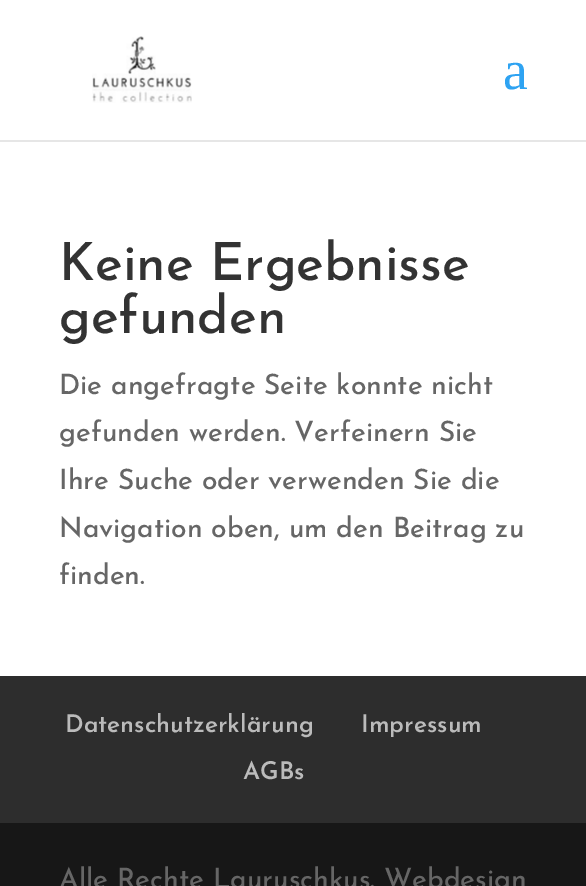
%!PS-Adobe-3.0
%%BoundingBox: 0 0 586 886
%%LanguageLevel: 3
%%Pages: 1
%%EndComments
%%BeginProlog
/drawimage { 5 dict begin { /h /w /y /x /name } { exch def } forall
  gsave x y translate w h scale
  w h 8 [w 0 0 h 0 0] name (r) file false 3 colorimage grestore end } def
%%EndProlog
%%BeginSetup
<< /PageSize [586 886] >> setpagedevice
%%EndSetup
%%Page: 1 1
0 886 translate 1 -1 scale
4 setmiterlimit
1 setgray
0 0 586 886 rectfill
0.902 setgray
0 140 586 2 rectfill
(images/1.raw) 92 36 100 67 drawimage
0.176 setgray
0 676 586 147 rectfill
0.09 setgray
0 823 586 63 rectfill
/LiberationSerif-Regular [56 0 0 -56 0 0] selectfont
0.18 0.639 0.949 setrgbcolor
503 89 moveto (a) show
/JosefinSans-Medium [52.5 0 0 -52.5 0 0] selectfont
0.2 setgray
59 280 moveto (Keine Ergebnisse) show
59 333 moveto (gefunden) show
/JosefinSans-Medium [28 0 0 -28 0 0] selectfont
0.4 setgray
59 394 moveto (Die angefragte Seite konnte nicht) show
59 441 moveto (gefunden werden. Verfeinern Sie) show
59 489 moveto (Ihre Suche oder verwenden Sie die) show
59 537 moveto (Navigation oben, um den Beitrag zu) show
59 584 moveto (finden.) show
/JosefinSans-SemiBold [24.5 0 0 -24.5 0 0] selectfont
0.733 setgray
65 732 moveto (Datenschutzerklärung) show
361 732 moveto (Impressum) show
243 779 moveto (AGBs) show
/JosefinSans-Medium [28 0 0 -28 0 0] selectfont
0.4 setgray
59 888 moveto (Alle Rechte Lauruschkus. Webdesign) show
showpage
%%EOF
